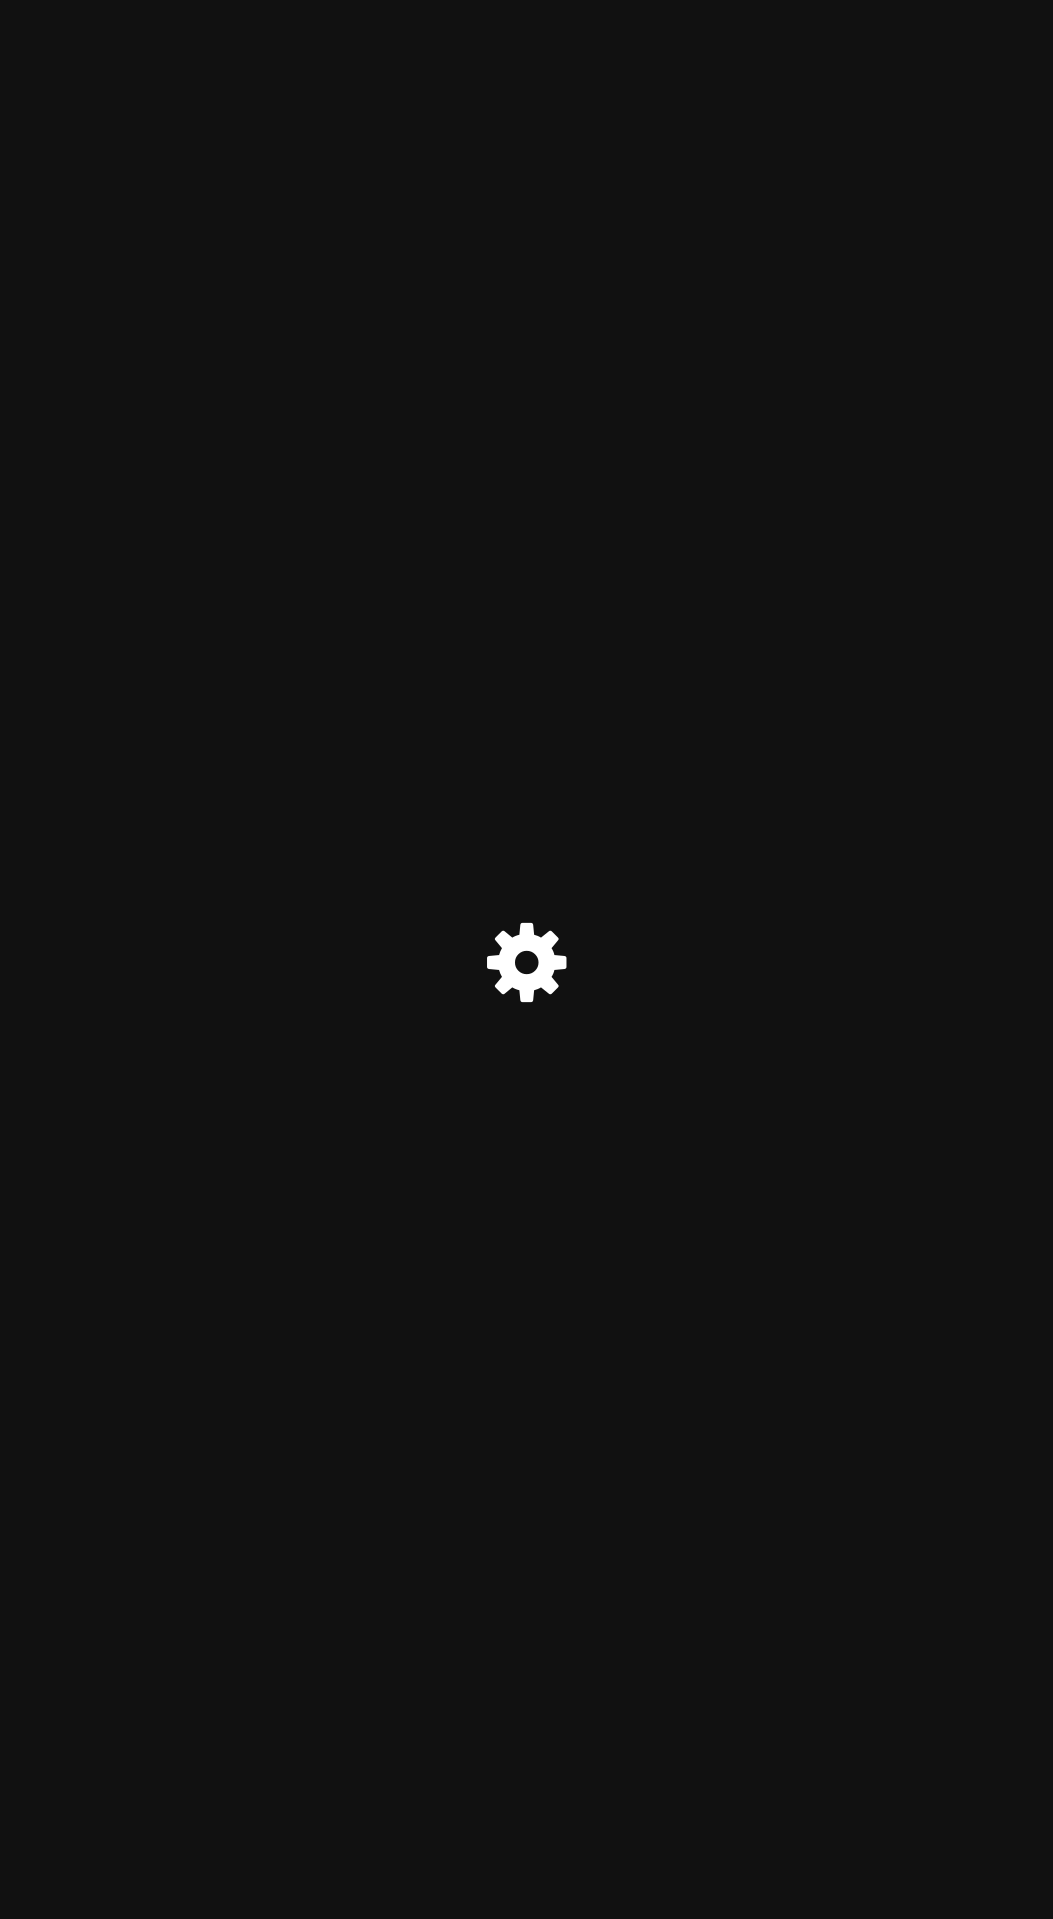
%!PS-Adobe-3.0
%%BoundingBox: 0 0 1053 1919
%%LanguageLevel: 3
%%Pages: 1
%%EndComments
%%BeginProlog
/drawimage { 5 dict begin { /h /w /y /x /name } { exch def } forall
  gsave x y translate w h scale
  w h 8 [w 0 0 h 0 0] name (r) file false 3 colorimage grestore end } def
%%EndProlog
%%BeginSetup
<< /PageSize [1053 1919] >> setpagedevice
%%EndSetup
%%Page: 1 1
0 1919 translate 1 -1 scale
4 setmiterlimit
0.067 setgray
0 0 1053 1919 rectfill
(images/1.raw) 487 922 80 81 drawimage
showpage
%%EOF
